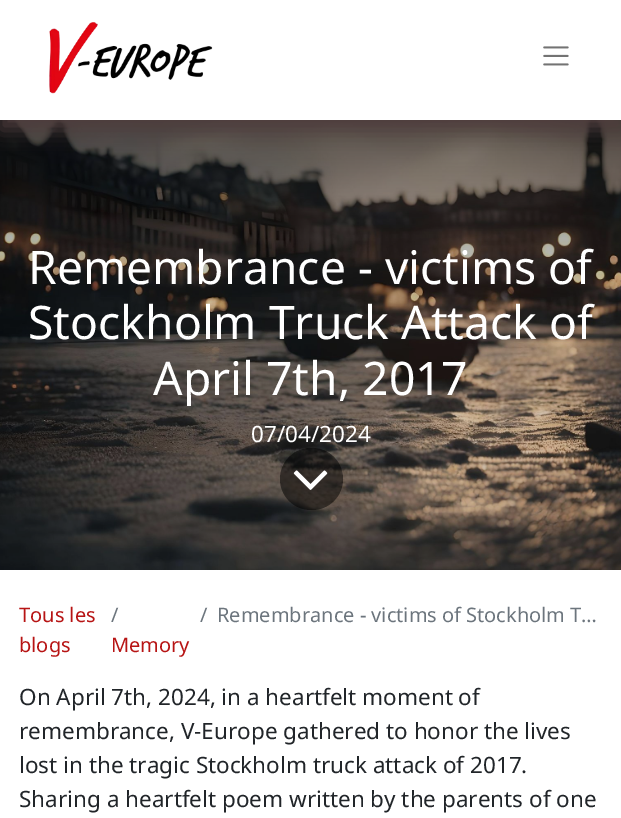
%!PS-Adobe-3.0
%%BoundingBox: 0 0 621 818
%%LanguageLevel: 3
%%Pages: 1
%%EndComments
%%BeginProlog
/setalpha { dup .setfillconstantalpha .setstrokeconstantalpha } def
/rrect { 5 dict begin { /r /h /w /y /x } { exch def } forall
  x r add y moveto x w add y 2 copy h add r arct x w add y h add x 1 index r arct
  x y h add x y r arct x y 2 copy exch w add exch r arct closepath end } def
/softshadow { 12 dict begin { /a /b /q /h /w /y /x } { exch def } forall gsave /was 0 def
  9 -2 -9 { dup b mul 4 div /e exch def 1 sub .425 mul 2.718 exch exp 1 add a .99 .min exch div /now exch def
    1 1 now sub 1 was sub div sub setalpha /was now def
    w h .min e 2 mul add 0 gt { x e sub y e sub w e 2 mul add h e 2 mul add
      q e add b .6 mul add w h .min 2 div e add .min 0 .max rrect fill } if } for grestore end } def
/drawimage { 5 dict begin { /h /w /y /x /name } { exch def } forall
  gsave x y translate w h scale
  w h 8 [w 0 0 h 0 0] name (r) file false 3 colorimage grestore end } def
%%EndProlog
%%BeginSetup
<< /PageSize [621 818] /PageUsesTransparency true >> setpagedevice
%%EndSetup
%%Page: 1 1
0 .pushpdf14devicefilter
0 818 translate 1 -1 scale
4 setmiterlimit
1 setgray
0 0 621 818 rectfill
(images/3.raw) 0 120 621 450 drawimage
gsave
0 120 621 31 rectclip
0.306 0.235 0.235 setrgbcolor
0 10 621 120 0 10 1 softshadow
grestore
(images/1.raw) 49 22 164 72 drawimage
(images/2.raw) 543 46 26 20 drawimage
0.5 setalpha
0 setgray
280 448 63 62 31 rrect fill
1 setalpha
(images/4.raw) 293 470 35 20 drawimage
/NotoZnamennyMusicalNotation-Regular [46.25 0 0 -46.25 0 0] selectfont
1 setgray
28 284 moveto (Remembrance - victims of) show
28 339 moveto (Stockholm Truck Attack of) show
153 395 moveto (April 7th, 2017) show
/NotoZnamennyMusicalNotation-Regular [22.5 0 0 -22.5 0 0] selectfont
251 442 moveto (07/04/2024) show
/NotoZnamennyMusicalNotation-Regular [20 0 0 -20 0 0] selectfont
0.718 0.078 0.078 setrgbcolor
19 622 moveto (Tous les) show
19 652 moveto (blogs) show
0.424 0.459 0.49 setrgbcolor
111 622 moveto (/) show
0.718 0.078 0.078 setrgbcolor
111 652 moveto (Memory) show
0.424 0.459 0.49 setrgbcolor
200 622 moveto (/) show
217 622 moveto (Remembrance - victims of Stockholm T…) show
/NotoZnamennyMusicalNotation-Regular [22.5 0 0 -22.5 0 0] selectfont
0.129 0.145 0.161 setrgbcolor
19 705 moveto (On April 7th, 2024, in a heartfelt moment of) show
19 739 moveto (remembrance, V-Europe gathered to honor the lives) show
19 773 moveto (lost in the tragic Stockholm truck attack of 2017.) show
19 807 moveto (Sharing a heartfelt poem written by the parents of one) show
.poppdf14devicefilter showpage
%%EOF
